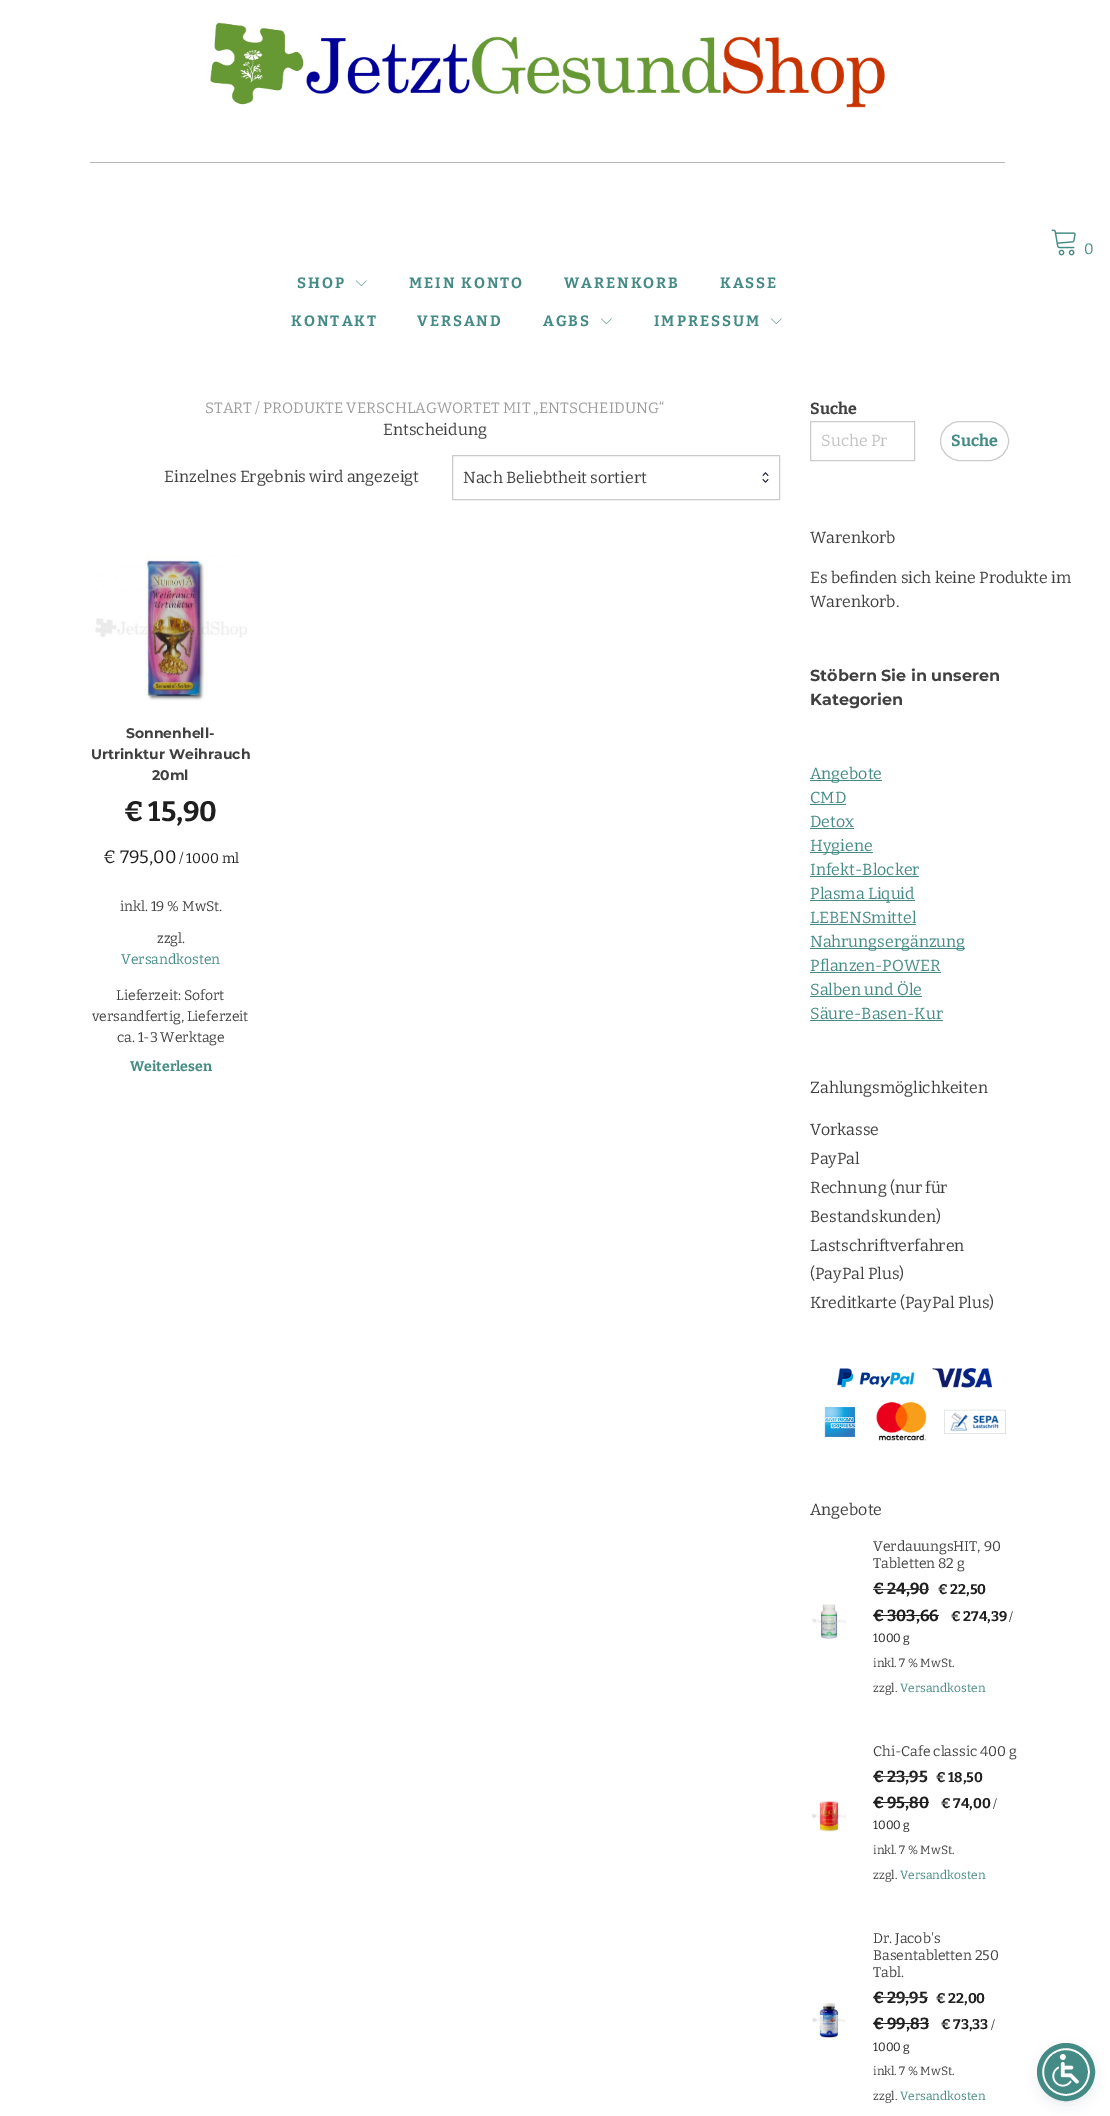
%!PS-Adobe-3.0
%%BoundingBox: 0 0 1110 2116
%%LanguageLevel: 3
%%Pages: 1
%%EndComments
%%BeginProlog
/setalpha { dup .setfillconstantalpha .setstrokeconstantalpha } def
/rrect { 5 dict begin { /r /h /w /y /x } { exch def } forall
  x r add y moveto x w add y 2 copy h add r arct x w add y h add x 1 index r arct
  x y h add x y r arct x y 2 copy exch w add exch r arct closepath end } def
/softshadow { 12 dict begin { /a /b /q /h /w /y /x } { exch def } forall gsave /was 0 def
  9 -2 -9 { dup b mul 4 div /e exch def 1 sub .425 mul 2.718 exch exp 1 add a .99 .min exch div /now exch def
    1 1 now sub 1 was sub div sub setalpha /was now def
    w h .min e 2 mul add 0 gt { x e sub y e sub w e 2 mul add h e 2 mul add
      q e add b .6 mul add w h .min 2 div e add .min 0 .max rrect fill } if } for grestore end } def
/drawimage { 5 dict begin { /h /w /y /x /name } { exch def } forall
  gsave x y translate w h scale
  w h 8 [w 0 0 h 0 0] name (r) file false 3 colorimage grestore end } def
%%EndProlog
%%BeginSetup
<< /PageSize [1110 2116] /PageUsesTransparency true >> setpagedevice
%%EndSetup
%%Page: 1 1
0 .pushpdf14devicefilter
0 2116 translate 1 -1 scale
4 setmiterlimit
1 setgray
0 0 1110 2116 rectfill
(images/1.raw) 210 22 675 86 drawimage
0.725 setgray
90 162 915 1 rectfill
(images/2.raw) 1051 229 25 27 drawimage
(images/3.raw) 356 280 11 6 drawimage
(images/3.raw) 601 318 11 6 drawimage
(images/3.raw) 771 318 11 6 drawimage
0.8 setgray
452.5 455.5 327 44 rectstroke
(images/4.raw) 762 472 7 11 drawimage
(images/5.raw) 95 555 152 146 drawimage
810.5 421.5 104 39 rectstroke
940.5 421.5 68 39 19.5 rrect stroke
0.267 0.541 0.522 setrgbcolor
810 780 72 1 rectfill
810 804 36 1 rectfill
810 828 44 1 rectfill
810 852 63 1 rectfill
810 876 109 1 rectfill
810 900 105 1 rectfill
810 924 106 1 rectfill
810 948 155 1 rectfill
810 972 131 1 rectfill
810 996 112 1 rectfill
810 1020 133 1 rectfill
(images/6.raw) 824 1368 182 73 drawimage
(images/7.raw) 812 1604 34 35 drawimage
0.122 setgray
873 1615 66 1 rectfill
(images/8.raw) 812 1801 34 31 drawimage
873 1802 56 1 rectfill
(images/9.raw) 812 2003 34 35 drawimage
873 2023 56 1 rectfill
0.365 0.392 0.58 setrgbcolor
1042 2050 48 48 24 2 0.2 softshadow
0.145 0.173 0.38 setrgbcolor
1042 2053 48 48 24 7.5 0.15 softshadow
0.267 0.541 0.522 setrgbcolor
newpath 1066 2072 23 0 360 arc closepath gsave fill grestore
1 setgray
2 setlinewidth
stroke
0.267 0.541 0.522 setrgbcolor
5 setlinewidth
newpath 1066 2072 26.5 0 360 arc closepath stroke
(images/10.raw) 1052 2054 27 33 drawimage
/Bitter-Regular [15 0 0 -15 0 0] selectfont
1084 254 moveto (0) show
/Bitter-Bold [15 0 0 -15 0 0] selectfont
297 288 moveto 2 0 (SHOP) ashow
409 288 moveto 2 0 (MEIN KONTO) ashow
564 288 moveto 2 0 (WARENKORB) ashow
720 288 moveto 2 0 (KASSE) ashow
291 326 moveto 2 0 (KONTAKT) ashow
417 326 moveto 2 0 (VERSAND) ashow
543 326 moveto 2 0 (AGBS) ashow
654 326 moveto 2 0 (IMPRESSUM) ashow
/Bitter-Regular [15 0 0 -15 0 0] selectfont
0.616 setgray
205 413 moveto (START / PRODUKTE VERSCHLAGWORTET MIT „ENTSCHEIDUNG“) show
/Bitter-Regular [16 0 0 -16 0 0] selectfont
0.251 setgray
383 435 moveto (Entscheidung) show
164 482 moveto (Einzelnes Ergebnis wird angezeigt) show
463 483 moveto (Nach Beliebtheit sortiert) show
/Montserrat-Thin [14 0 0 -14 0 0] selectfont
126 738 moveto (Sonnenhell-) show
91 759 moveto (Urtrinktur Weihrauch) show
152 780 moveto (20ml) show
/Bitter-Bold [28 0 0 -28 0 0] selectfont
0.122 setgray
124 821 moveto (€ 15,90) show
/Bitter-Regular [18 0 0 -18 0 0] selectfont
103 863 moveto (€ 795,00) show
/Bitter-Regular [14 0 0 -14 0 0] selectfont
179 863 moveto (/ 1000 ml) show
0.251 setgray
120 911 moveto (inkl. 19 % MwSt.) show
157 943 moveto (zzgl.) show
0.267 0.541 0.522 setrgbcolor
121 964 moveto (Versandkosten) show
0.251 setgray
116 1000 moveto (Lieferzeit: Sofort) show
92 1021 moveto (versandfertig, Lieferzeit) show
117 1042 moveto (ca. 1-3 Werktage) show
/Bitter-Bold [14 0 0 -14 0 0] selectfont
0.267 0.541 0.522 setrgbcolor
130 1071 moveto (Weiterlesen) show
/Bitter-Bold [16 0 0 -16 0 0] selectfont
0.251 setgray
810 414 moveto (Suche) show
/Bitter-Regular [16 0 0 -16 0 0] selectfont
0.761 setgray
821 446 moveto (Suche Pr) show
/Bitter-Bold [16 0 0 -16 0 0] selectfont
0.267 0.541 0.522 setrgbcolor
951 446 moveto (Suche) show
/Bitter-Regular [16 0 0 -16 0 0] selectfont
0.251 setgray
810 543 moveto (Warenkorb) show
810 583 moveto (Es befinden sich keine Produkte im) show
810 607 moveto (Warenkorb.) show
/Montserrat-Thin [16 0 0 -16 0 0] selectfont
810 681 moveto (Stöbern Sie in unseren) show
810 705 moveto (Kategorien) show
/Bitter-Regular [16 0 0 -16 0 0] selectfont
0.267 0.541 0.522 setrgbcolor
810 779 moveto (Angebote) show
810 803 moveto (CMD) show
810 827 moveto (Detox) show
810 851 moveto (Hygiene) show
810 875 moveto (Infekt-Blocker) show
810 899 moveto (Plasma Liquid) show
810 923 moveto (LEBENSmittel) show
810 947 moveto (Nahrungsergänzung) show
810 971 moveto (Pflanzen-POWER) show
810 995 moveto (Salben und Öle) show
810 1019 moveto (Säure-Basen-Kur) show
0.251 setgray
810 1093 moveto (Zahlungsmöglichkeiten) show
810 1135 moveto (Vorkasse) show
810 1164 moveto (PayPal) show
810 1193 moveto (Rechnung \(nur für) show
810 1222 moveto (Bestandskunden\)) show
810 1251 moveto (Lastschriftverfahren) show
810 1279 moveto (\(PayPal Plus\)) show
810 1308 moveto (Kreditkarte \(PayPal Plus\)) show
810 1515 moveto (Angebote) show
/Bitter-Regular [14 0 0 -14 0 0] selectfont
873 1551 moveto (VerdauungsHIT, 90) show
873 1568 moveto (Tabletten 82 g) show
/Bitter-Bold [16 0 0 -16 0 0] selectfont
0.122 setgray
873 1594 moveto (€ 24,90) show
0.251 setgray
873 1589 56 1 rectfill
/Bitter-Bold [14 0 0 -14 0 0] selectfont
0.122 setgray
938 1594 moveto (€ 22,50) show
/Bitter-Bold [16 0 0 -16 0 0] selectfont
873 1621 moveto (€ 303,66) show
/Bitter-Bold [14 0 0 -14 0 0] selectfont
951 1621 moveto (€ 274,39) show
/Bitter-Regular [12 0 0 -12 0 0] selectfont
1009 1621 moveto (/) show
873 1642 moveto (1000 g) show
0.251 setgray
873 1667 moveto (inkl. 7 % MwSt.) show
873 1692 moveto (zzgl.) show
0.267 0.541 0.522 setrgbcolor
900 1692 moveto (Versandkosten) show
/Bitter-Regular [14 0 0 -14 0 0] selectfont
0.251 setgray
873 1756 moveto (Chi-Cafe classic 400 g) show
/Bitter-Bold [16 0 0 -16 0 0] selectfont
0.122 setgray
873 1782 moveto (€ 23,95) show
0.251 setgray
873 1776 54 1 rectfill
/Bitter-Bold [14 0 0 -14 0 0] selectfont
0.122 setgray
936 1782 moveto (€ 18,50) show
/Bitter-Bold [16 0 0 -16 0 0] selectfont
873 1808 moveto (€ 95,80) show
/Bitter-Bold [14 0 0 -14 0 0] selectfont
941 1808 moveto (€ 74,00) show
/Bitter-Regular [12 0 0 -12 0 0] selectfont
993 1808 moveto (/) show
873 1829 moveto (1000 g) show
0.251 setgray
873 1854 moveto (inkl. 7 % MwSt.) show
873 1879 moveto (zzgl.) show
0.267 0.541 0.522 setrgbcolor
900 1879 moveto (Versandkosten) show
/Bitter-Regular [14 0 0 -14 0 0] selectfont
0.251 setgray
873 1943 moveto (Dr. Jacob's) show
873 1960 moveto (Basentabletten 250) show
873 1977 moveto (Tabl.) show
/Bitter-Bold [16 0 0 -16 0 0] selectfont
0.122 setgray
873 2003 moveto (€ 29,95) show
0.251 setgray
873 1997 55 1 rectfill
/Bitter-Bold [14 0 0 -14 0 0] selectfont
0.122 setgray
936 2003 moveto (€ 22,00) show
/Bitter-Bold [16 0 0 -16 0 0] selectfont
873 2029 moveto (€ 99,83) show
/Bitter-Bold [14 0 0 -14 0 0] selectfont
941 2029 moveto (€ 73,33) show
/Bitter-Regular [12 0 0 -12 0 0] selectfont
991 2029 moveto (/) show
873 2051 moveto (1000 g) show
0.251 setgray
873 2075 moveto (inkl. 7 % MwSt.) show
873 2100 moveto (zzgl.) show
0.267 0.541 0.522 setrgbcolor
900 2100 moveto (Versandkosten) show
.poppdf14devicefilter showpage
%%EOF
